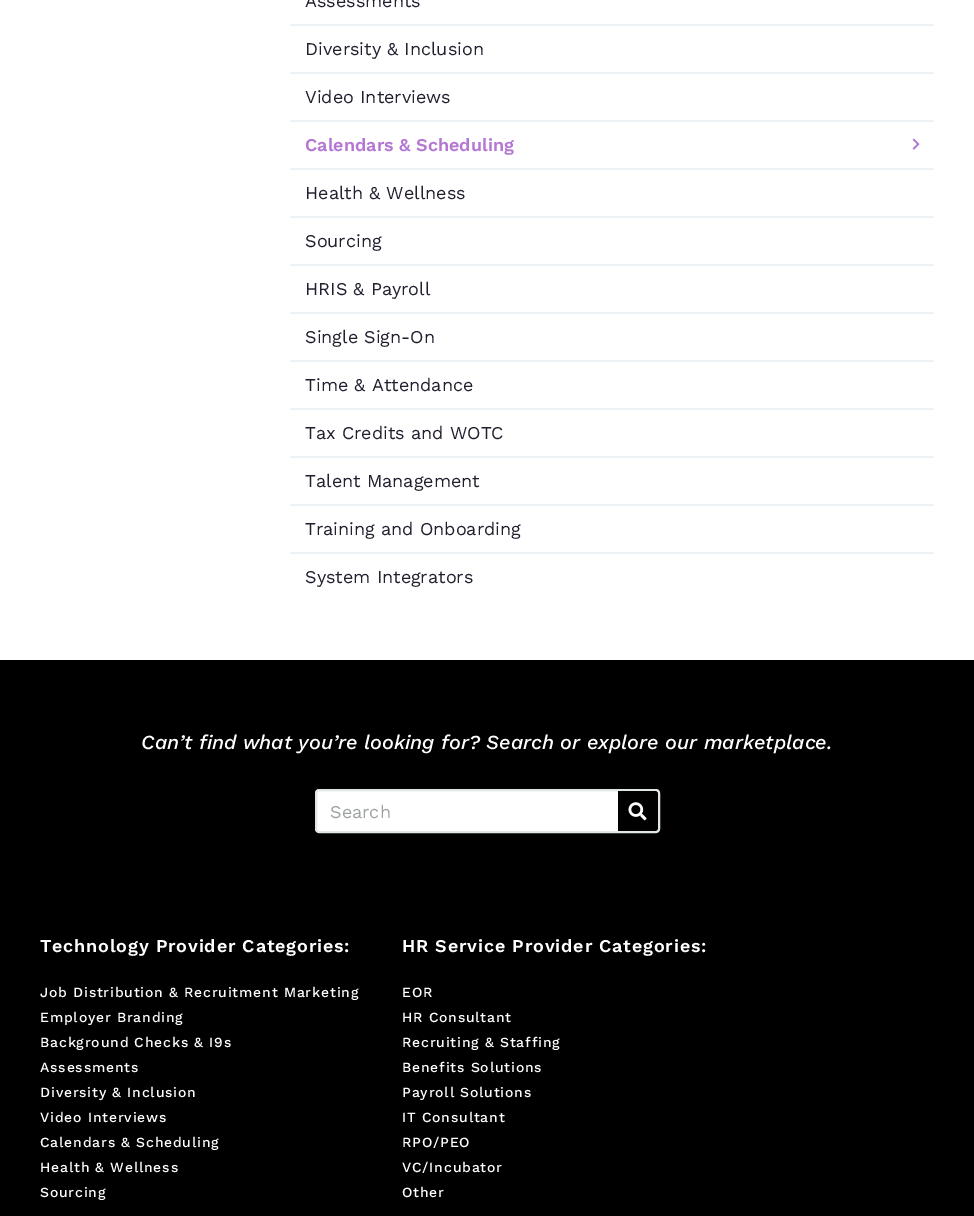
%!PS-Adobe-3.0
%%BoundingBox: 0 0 974 1216
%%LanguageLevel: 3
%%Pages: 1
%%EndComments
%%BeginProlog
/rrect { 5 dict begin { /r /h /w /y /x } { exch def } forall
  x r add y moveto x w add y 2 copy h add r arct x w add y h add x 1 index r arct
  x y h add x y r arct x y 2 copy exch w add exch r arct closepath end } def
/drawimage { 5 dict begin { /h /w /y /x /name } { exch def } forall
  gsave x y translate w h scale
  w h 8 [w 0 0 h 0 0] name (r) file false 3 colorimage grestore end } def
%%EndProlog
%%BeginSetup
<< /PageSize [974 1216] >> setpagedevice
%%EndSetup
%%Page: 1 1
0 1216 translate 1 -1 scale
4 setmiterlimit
1 setgray
0 0 974 1216 rectfill
0.929 0.953 0.961 setrgbcolor
290 24 644 2 rectfill
290 72 644 2 rectfill
290 120 644 2 rectfill
290 168 644 2 rectfill
(images/1.raw) 912 138 8 12 drawimage
290 216 644 2 rectfill
290 264 644 2 rectfill
290 312 644 2 rectfill
290 360 644 2 rectfill
290 408 644 2 rectfill
290 456 644 2 rectfill
290 504 644 2 rectfill
290 552 644 2 rectfill
0 setgray
0 660 974 556 rectfill
1 setgray
316 790 343 42 3 rrect gsave fill grestore
0.882 0.902 0.91 setrgbcolor
2 setlinewidth
stroke
0 setgray
newpath 618 791 moveto 655 791 lineto 656.5 791 658 792.5 658 794 curveto 658 828 lineto 658 829.5 656.5 831 655 831 curveto 618 831 lineto closepath fill
(images/2.raw) 628 802 19 19 drawimage
/WorkSans-Regular [18 0 0 -18 0 0] selectfont
0.129 0.125 0.184 setrgbcolor
305 7 moveto (Assessments) show
305 55 moveto (Diversity & Inclusion) show
305 103 moveto (Video Interviews) show
/WorkSans-SemiBold [18 0 0 -18 0 0] selectfont
0.706 0.467 0.824 setrgbcolor
305 151 moveto (Calendars & Scheduling) show
/WorkSans-Regular [18 0 0 -18 0 0] selectfont
0.129 0.125 0.184 setrgbcolor
305 199 moveto (Health & Wellness) show
305 247 moveto (Sourcing) show
305 295 moveto (HRIS & Payroll) show
305 343 moveto (Single Sign-On) show
305 391 moveto (Time & Attendance) show
305 439 moveto (Tax Credits and WOTC) show
305 487 moveto (Talent Management) show
305 535 moveto (Training and Onboarding) show
305 583 moveto (System Integrators) show
/WorkSans-MediumItalic [20 0 0 -20 0 0] selectfont
1 setgray
141 749 moveto (Can’t find what you’re looking for? Search or explore our marketplace.) show
/WorkSans-Regular [18 0 0 -18 0 0] selectfont
0.624 0.635 0.639 setrgbcolor
330 818 moveto (Search) show
/WorkSans-SemiBold [18 0 0 -18 0 0] selectfont
1 setgray
40 952 moveto 0.8 0 (Technology Provider Categories:) ashow
/WorkSans-Medium [14 0 0 -14 0 0] selectfont
40 997 moveto 0.8 0 (Job Distribution & Recruitment Marketing) ashow
40 1022 moveto 0.8 0 (Employer Branding) ashow
40 1047 moveto 0.8 0 (Background Checks & I9s) ashow
40 1072 moveto 0.8 0 (Assessments) ashow
40 1097 moveto 0.8 0 (Diversity & Inclusion) ashow
40 1122 moveto 0.8 0 (Video Interviews) ashow
40 1147 moveto 0.8 0 (Calendars & Scheduling) ashow
40 1172 moveto 0.8 0 (Health & Wellness) ashow
40 1197 moveto 0.8 0 (Sourcing) ashow
/WorkSans-SemiBold [18 0 0 -18 0 0] selectfont
402 952 moveto 0.8 0 (HR Service Provider Categories:) ashow
/WorkSans-Medium [14 0 0 -14 0 0] selectfont
402 997 moveto 0.8 0 (EOR) ashow
402 1022 moveto 0.8 0 (HR Consultant) ashow
402 1047 moveto 0.8 0 (Recruiting & Staffing) ashow
402 1072 moveto 0.8 0 (Benefits Solutions) ashow
402 1097 moveto 0.8 0 (Payroll Solutions) ashow
402 1122 moveto 0.8 0 (IT Consultant) ashow
402 1147 moveto 0.8 0 (RPO/PEO) ashow
402 1172 moveto 0.8 0 (VC/Incubator) ashow
402 1197 moveto 0.8 0 (Other) ashow
showpage
%%EOF
